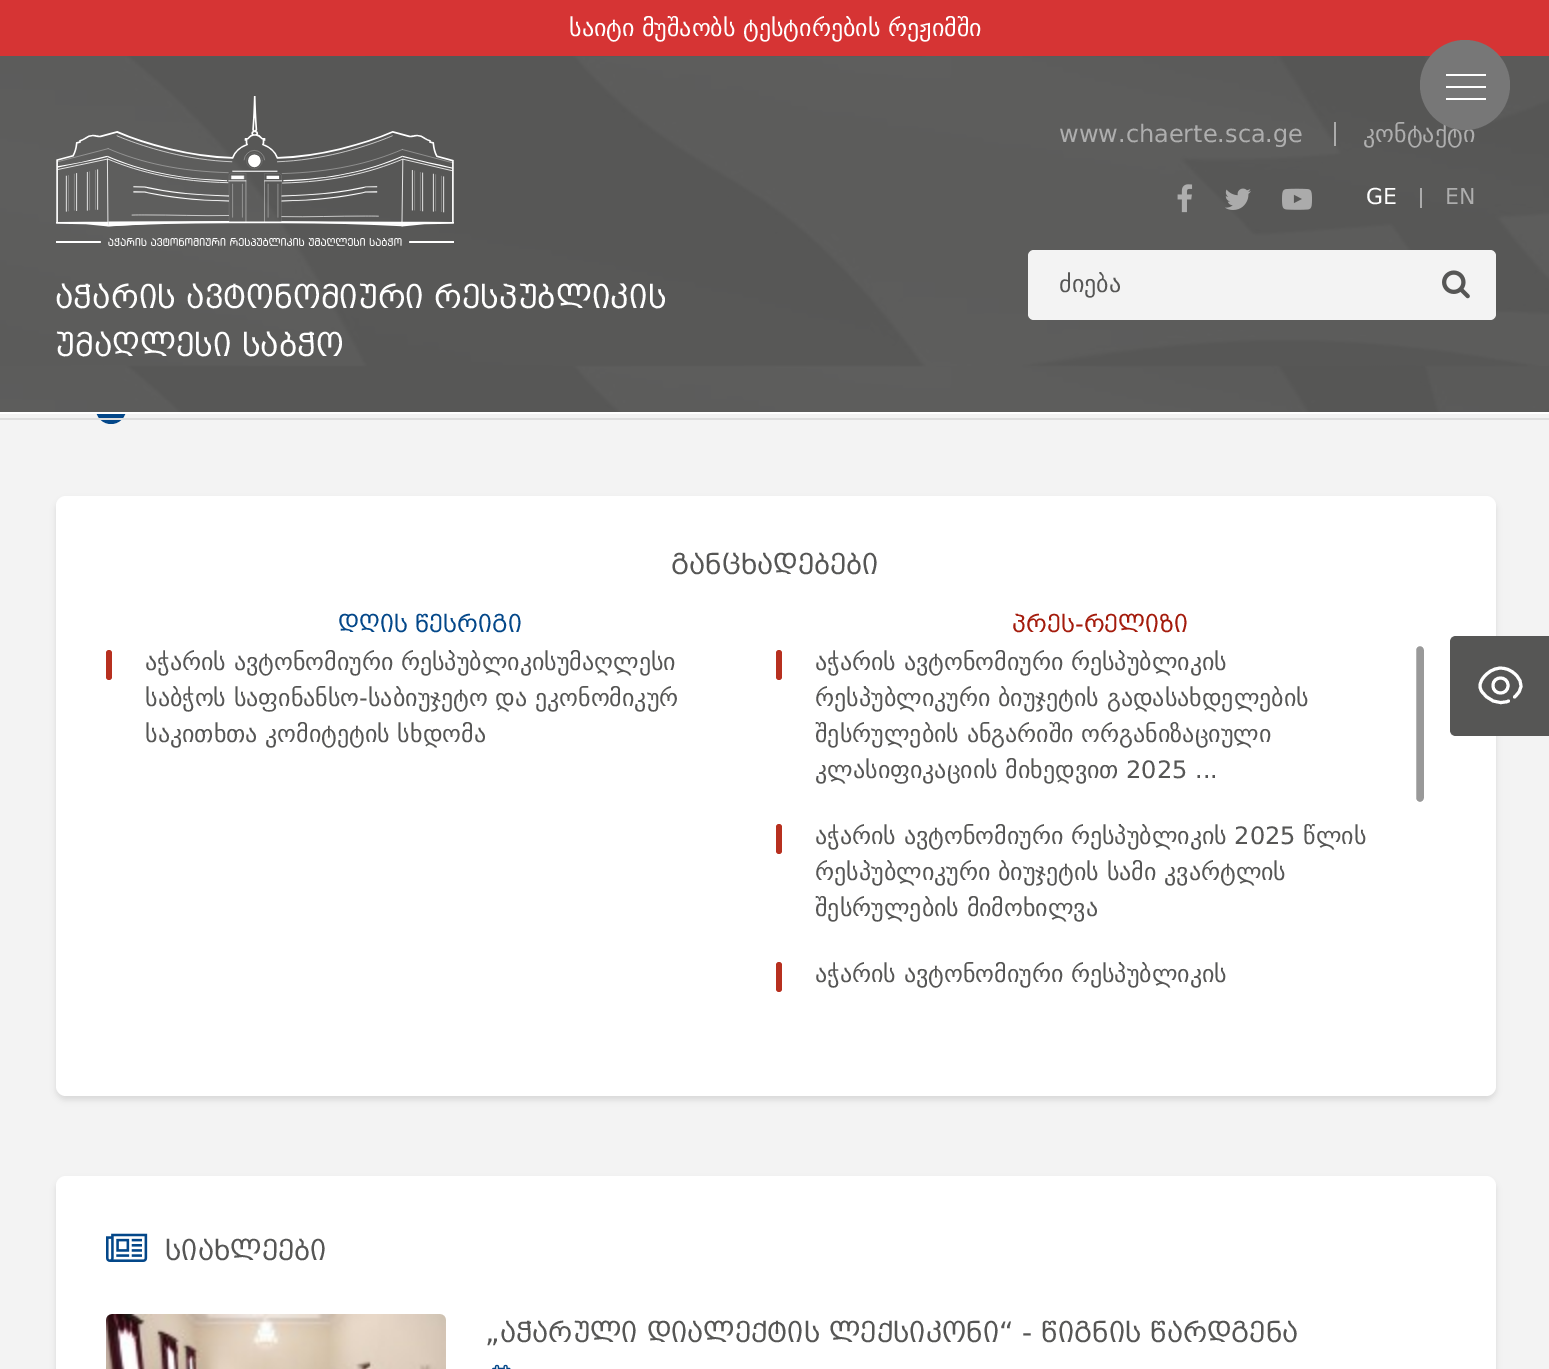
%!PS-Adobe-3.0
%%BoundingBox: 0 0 1549 1369
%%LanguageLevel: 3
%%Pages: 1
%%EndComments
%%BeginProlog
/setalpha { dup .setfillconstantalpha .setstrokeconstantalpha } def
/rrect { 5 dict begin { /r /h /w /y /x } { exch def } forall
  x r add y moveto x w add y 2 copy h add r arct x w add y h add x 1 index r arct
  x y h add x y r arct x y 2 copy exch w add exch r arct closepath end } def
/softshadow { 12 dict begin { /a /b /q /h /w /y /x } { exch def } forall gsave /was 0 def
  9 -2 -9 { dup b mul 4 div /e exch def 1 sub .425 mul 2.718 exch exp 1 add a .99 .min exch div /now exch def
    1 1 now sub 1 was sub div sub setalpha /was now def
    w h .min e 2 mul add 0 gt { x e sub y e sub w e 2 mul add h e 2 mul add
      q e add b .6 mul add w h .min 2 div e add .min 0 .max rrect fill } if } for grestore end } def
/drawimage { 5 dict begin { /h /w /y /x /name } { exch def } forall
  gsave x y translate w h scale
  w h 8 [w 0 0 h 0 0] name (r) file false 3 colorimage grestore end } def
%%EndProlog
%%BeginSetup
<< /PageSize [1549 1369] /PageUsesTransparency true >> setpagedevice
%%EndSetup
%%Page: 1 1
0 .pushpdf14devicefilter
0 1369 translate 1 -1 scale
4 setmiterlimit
0.953 setgray
0 0 1549 1369 rectfill
0.839 0.204 0.204 setrgbcolor
0 0 1549 56 rectfill
0.012 0.278 0.537 setrgbcolor
newpath 111 409 15 0 360 arc closepath fill
(images/1.raw) 0 56 1549 356 drawimage
0.5 setalpha
1 setgray
1334 122 2 24 rectfill
1 setalpha
(images/2.raw) 1177 184 16 29 drawimage
(images/3.raw) 1225 188 26 22 drawimage
(images/4.raw) 1282 188 30 22 drawimage
0.671 setgray
1420 188 2 20 rectfill
0.953 setgray
1028 250 468 70 6 rrect fill
(images/5.raw) 1442 270 28 29 drawimage
(images/6.raw) 56 96 398 150 drawimage
0.871 setgray
0 418 1549 2 rectfill
1 setgray
0 412 1549 2 rectfill
0 setgray
56 500 1440 600 10 3 0.1 softshadow
1 setgray
56 496 1440 600 10 rrect fill
0.718 0.188 0.122 setrgbcolor
106 650 6 30 3 rrect fill
776 650 6 30 3 rrect fill
776 824 6 30 3 rrect fill
776 962 6 30 3 rrect fill
0.6 setgray
1415 645 10 158 5 rrect gsave fill grestore
1 setgray
2 setlinewidth
stroke
0.337 0.337 0.333 setrgbcolor
newpath 1456 636 moveto 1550 636 lineto 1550 736 lineto 1456 736 lineto 1452.5 736 1450 733.5 1450 730 curveto 1450 642 lineto 1450 638.5 1452.5 636 1456 636 curveto closepath fill
1 setgray
3 setlinewidth
1 setlinecap
1 setlinejoin
newpath 1508 685.5 moveto 1508 695.5 1493 695.5 1493 685.5 curveto 1493 675.5 1508 675.5 1508 685.5 curveto closepath 1514.5 697 moveto 1522.5 690 1523.5 683 1516 675 curveto 1506 664.5 1492 666.5 1483.5 677.5 curveto 1480.5 681 1478.5 686.5 1481.5 691 curveto 1487.5 700 1498 705.5 1508.5 701 curveto stroke
0 setgray
56 1180 1440 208 10 3 0.1 softshadow
1 setgray
56 1176 1440 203 10 rrect fill
(images/7.raw) 106 1233 42 29 drawimage
(images/8.raw) 106 1314 340 55 drawimage
(images/9.raw) 492 1364 19 5 drawimage
/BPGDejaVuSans-Regular [24 0 0 -24 0 0] selectfont
569 36 moveto (საიტი მუშაობს ტესტირების რეჟიმში) show
0.682 setgray
1059 142 moveto (www.chaerte.sca.ge) show
1363 142 moveto (კონტაქტი) show
0.467 setgray
newpath 1465 85 45 0 360 arc closepath fill
1 setgray
1446 98 40 2 rectfill
1446 86 40 2 rectfill
1446 74 40 2 rectfill
/BPGDejaVuSans-Regular [22 0 0 -22 0 0] selectfont
1366 204 moveto (GE) show
0.682 setgray
1445 204 moveto (EN) show
/BPGDejaVuSans-Regular [24 0 0 -24 0 0] selectfont
0.337 0.337 0.333 setrgbcolor
1059 292 moveto (ძიება) show
/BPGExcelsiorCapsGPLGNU-Regular [32 0 0 -32 0 0] selectfont
1 setgray
55 308 moveto (აჭარის ავტონომიური რესპუბლიკის) show
55 356 moveto (უმაღლესი საბჭო) show
/BPGExcelsiorCapsGPLGNU-Regular [28 0 0 -28 0 0] selectfont
0.337 0.337 0.333 setrgbcolor
671 574 moveto (განცხადებები) show
/BPGExcelsiorCapsGPLGNU-Regular [24 0 0 -24 0 0] selectfont
0.012 0.278 0.537 setrgbcolor
338 632 moveto (დღის წესრიგი) show
/BPGDejaVuSans-Regular [24 0 0 -24 0 0] selectfont
0.337 0.337 0.333 setrgbcolor
145 670 moveto (აჭარის ავტონომიური რესპუბლიკისუმაღლესი) show
145 706 moveto (საბჭოს საფინანსო-საბიუჯეტო და ეკონომიკურ) show
145 742 moveto (საკითხთა კომიტეტის სხდომა) show
/BPGExcelsiorCapsGPLGNU-Regular [24 0 0 -24 0 0] selectfont
0.643 0.106 0.047 setrgbcolor
1012 632 moveto (პრეს-რელიზი) show
/BPGDejaVuSans-Regular [24 0 0 -24 0 0] selectfont
0.337 0.337 0.333 setrgbcolor
815 670 moveto (აჭარის ავტონომიური რესპუბლიკის) show
815 706 moveto (რესპუბლიკური ბიუჯეტის გადასახდელების) show
815 742 moveto (შესრულების ანგარიში ორგანიზაციული) show
815 778 moveto (კლასიფიკაციის მიხედვით 2025 ...) show
815 844 moveto (აჭარის ავტონომიური რესპუბლიკის 2025 წლის) show
815 880 moveto (რესპუბლიკური ბიუჯეტის სამი კვარტლის) show
815 916 moveto (შესრულების მიმოხილვა) show
815 982 moveto (აჭარის ავტონომიური რესპუბლიკის) show
/BPGExcelsiorCapsGPLGNU-Regular [28 0 0 -28 0 0] selectfont
165 1260 moveto (სიახლეები) show
485 1342 moveto („აჭარული დიალექტის ლექსიკონი“ - წიგნის წარდგენა) show
.poppdf14devicefilter showpage
%%EOF
